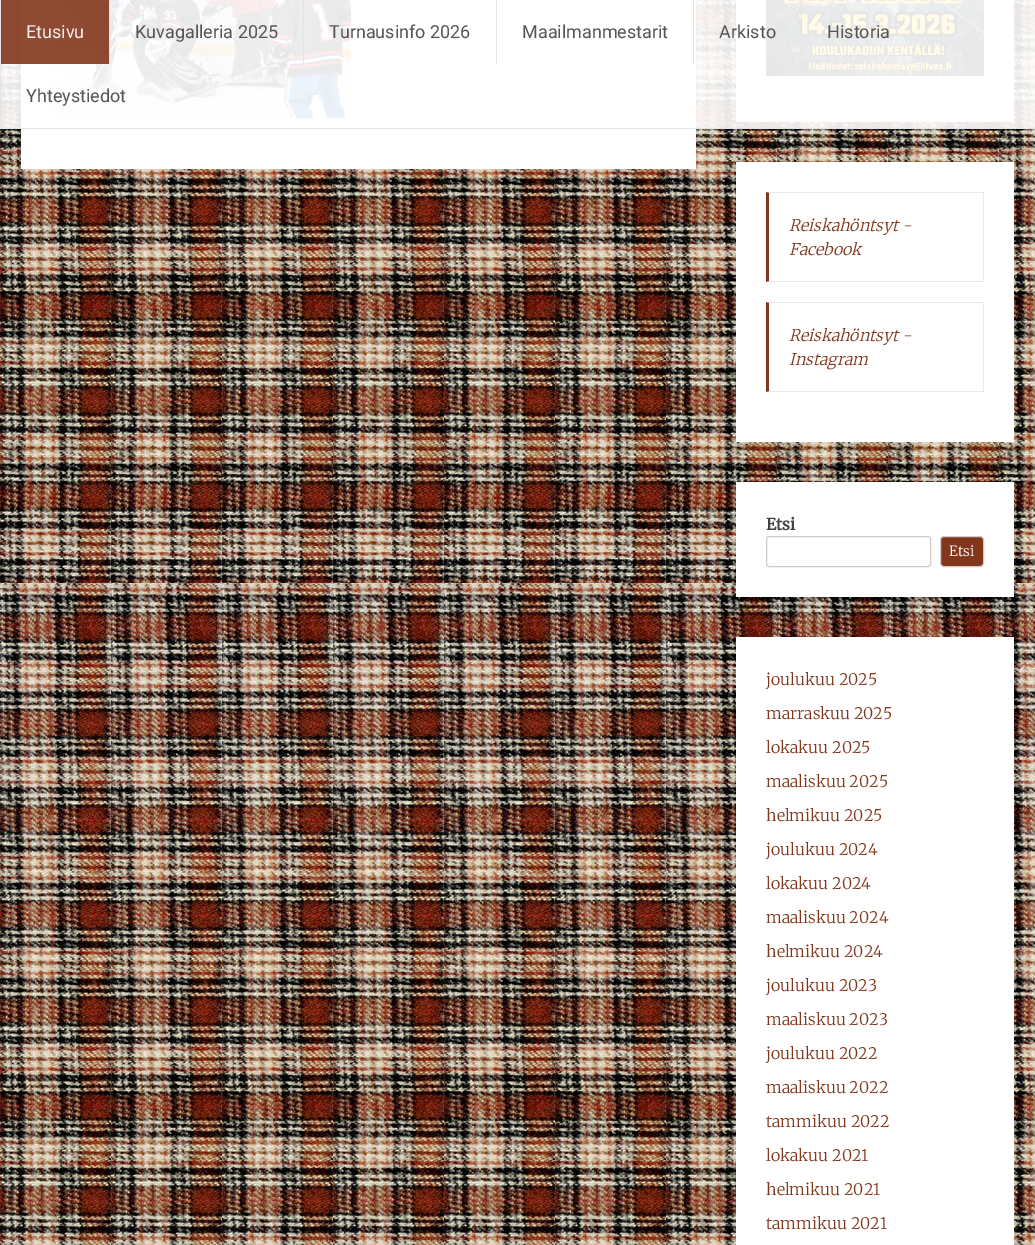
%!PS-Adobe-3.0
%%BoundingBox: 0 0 1035 1245
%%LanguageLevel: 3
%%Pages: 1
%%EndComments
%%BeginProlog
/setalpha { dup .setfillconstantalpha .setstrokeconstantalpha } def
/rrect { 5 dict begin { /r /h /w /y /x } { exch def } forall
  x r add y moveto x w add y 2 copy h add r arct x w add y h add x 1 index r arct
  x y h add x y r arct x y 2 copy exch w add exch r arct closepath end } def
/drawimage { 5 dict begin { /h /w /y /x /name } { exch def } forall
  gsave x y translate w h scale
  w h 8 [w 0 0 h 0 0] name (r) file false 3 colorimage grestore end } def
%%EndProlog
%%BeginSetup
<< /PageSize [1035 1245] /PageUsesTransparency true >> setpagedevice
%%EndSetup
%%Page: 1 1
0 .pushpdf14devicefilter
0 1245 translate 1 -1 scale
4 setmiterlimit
1 setgray
0 0 1035 1245 rectfill
(images/1.raw) 0 0 1035 1245 drawimage
21 0 675 169 rectfill
(images/2.raw) 51 0 300 118 drawimage
736 0 278 122 rectfill
(images/3.raw) 766 0 218 76 drawimage
0.9 setalpha
0 0 1035 129 rectfill
0.882 0.894 0.902 setrgbcolor
0 128 1035 1 rectfill
0 0 1 64 rectfill
0.51 0.216 0.11 setrgbcolor
1 0 108 64 rectfill
0.882 0.894 0.902 setrgbcolor
109 0 1 64 rectfill
303 0 1 64 rectfill
1 setalpha
0.894 0.906 0.914 setrgbcolor
496 0 1 64 rectfill
693 0 1 64 rectfill
0.9 setalpha
0.882 0.894 0.902 setrgbcolor
801 0 1 64 rectfill
0 64 1 64 rectfill
1 setalpha
1 setgray
736 162 278 280 rectfill
0.918 setgray
newpath 766 192 moveto 984 192 lineto 983 193 lineto 769 193 lineto closepath fill
983 192 1 90 rectfill
newpath 984 282 moveto 766 282 lineto 769 281 lineto 983 281 lineto closepath fill
0.51 0.216 0.11 setrgbcolor
newpath 766 282 moveto 766 192 lineto 769 193 lineto 769 281 lineto closepath fill
0.918 setgray
newpath 766 302 moveto 984 302 lineto 983 303 lineto 769 303 lineto closepath fill
983 302 1 90 rectfill
newpath 984 392 moveto 766 392 lineto 769 391 lineto 983 391 lineto closepath fill
0.51 0.216 0.11 setrgbcolor
newpath 766 392 moveto 766 302 lineto 769 303 lineto 769 391 lineto closepath fill
1 setgray
736 482 278 115 rectfill
0.8 setgray
766.5 536.5 164 30 2.5 rrect stroke
0.51 0.216 0.11 setrgbcolor
940.5 536.5 43 30 3.5 rrect gsave fill grestore
0.8 setgray
stroke
1 setgray
736 637 278 608 rectfill
/Roboto-Regular [18 0 0 -18 0 0] selectfont
0.957 0.929 0.922 setrgbcolor
26 38 moveto (Etusivu) show
0.333 setgray
135 38 moveto (Kuvagalleria 2025) show
329 38 moveto (Turnausinfo 2026) show
522 38 moveto (Maailmanmestarit) show
719 38 moveto (Arkisto) show
827 38 moveto (Historia) show
26 102 moveto (Yhteystiedot) show
/Merriweather-LightItalic [16 0 0 -16 0 0] selectfont
0.51 0.216 0.11 setrgbcolor
789 231 moveto (Reiskahöntsyt -) show
789 255 moveto (Facebook) show
789 341 moveto (Reiskahöntsyt -) show
789 365 moveto (Instagram) show
/Merriweather-Bold [16 0 0 -16 0 0] selectfont
0.267 setgray
766 530 moveto (Etsi) show
/Merriweather-Light [14 0 0 -14 0 0] selectfont
1 setgray
949 556 moveto (Etsi) show
/Merriweather-Light [16 0 0 -16 0 0] selectfont
0.51 0.216 0.11 setrgbcolor
766 685 moveto (joulukuu 2025) show
766 719 moveto (marraskuu 2025) show
766 753 moveto (lokakuu 2025) show
766 787 moveto (maaliskuu 2025) show
766 821 moveto (helmikuu 2025) show
766 855 moveto (joulukuu 2024) show
766 889 moveto (lokakuu 2024) show
766 923 moveto (maaliskuu 2024) show
766 957 moveto (helmikuu 2024) show
766 991 moveto (joulukuu 2023) show
766 1025 moveto (maaliskuu 2023) show
766 1059 moveto (joulukuu 2022) show
766 1093 moveto (maaliskuu 2022) show
766 1127 moveto (tammikuu 2022) show
766 1161 moveto (lokakuu 2021) show
766 1195 moveto (helmikuu 2021) show
766 1229 moveto (tammikuu 2021) show
.poppdf14devicefilter showpage
%%EOF
